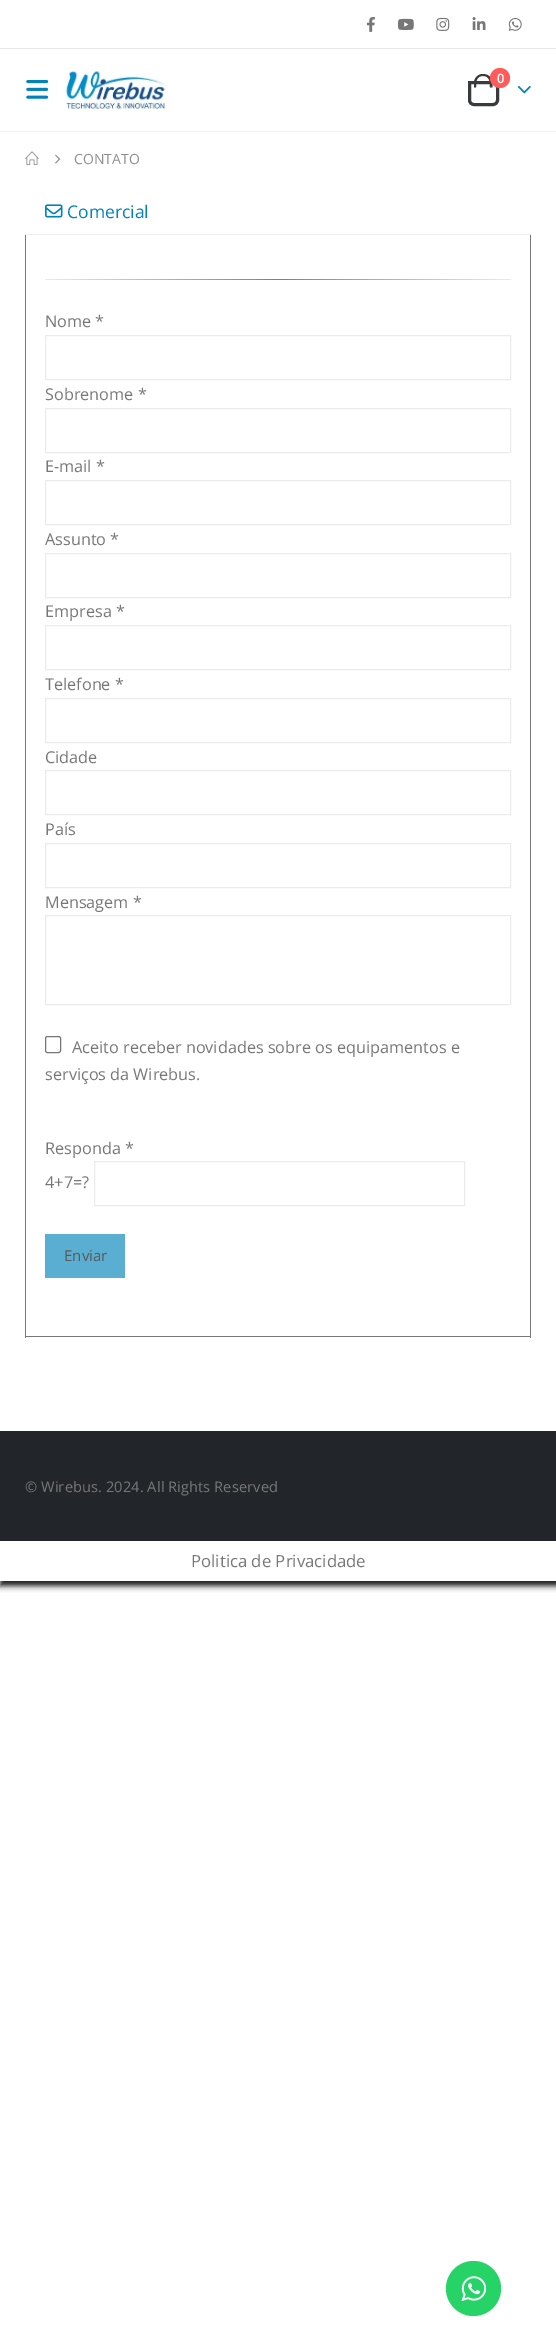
%!PS-Adobe-3.0
%%BoundingBox: 0 0 556 2328
%%LanguageLevel: 3
%%Pages: 1
%%EndComments
%%BeginProlog
/setalpha { dup .setfillconstantalpha .setstrokeconstantalpha } def
/rrect { 5 dict begin { /r /h /w /y /x } { exch def } forall
  x r add y moveto x w add y 2 copy h add r arct x w add y h add x 1 index r arct
  x y h add x y r arct x y 2 copy exch w add exch r arct closepath end } def
/softshadow { 12 dict begin { /a /b /q /h /w /y /x } { exch def } forall gsave /was 0 def
  9 -2 -9 { dup b mul 4 div /e exch def 1 sub .425 mul 2.718 exch exp 1 add a .99 .min exch div /now exch def
    1 1 now sub 1 was sub div sub setalpha /was now def
    w h .min e 2 mul add 0 gt { x e sub y e sub w e 2 mul add h e 2 mul add
      q e add b .6 mul add w h .min 2 div e add .min 0 .max rrect fill } if } for grestore end } def
/drawimage { 5 dict begin { /h /w /y /x /name } { exch def } forall
  gsave x y translate w h scale
  w h 8 [w 0 0 h 0 0] name (r) file false 3 colorimage grestore end } def
%%EndProlog
%%BeginSetup
<< /PageSize [556 2328] /PageUsesTransparency true >> setpagedevice
%%EndSetup
%%Page: 1 1
0 .pushpdf14devicefilter
0 2328 translate 1 -1 scale
4 setmiterlimit
1 setgray
0 0 556 2328 rectfill
0.957 setgray
0 131 556 1 rectfill
(images/1.raw) 366 17 9 15 drawimage
(images/2.raw) 397 18 17 12 drawimage
(images/3.raw) 436 17 14 14 drawimage
(images/4.raw) 472 17 14 13 drawimage
(images/5.raw) 508 17 14 14 drawimage
0.906 setgray
0 48 556 1 rectfill
(images/6.raw) 26 80 23 19 drawimage
(images/7.raw) 66 71 100 38 drawimage
0.22 0.231 0.243 setrgbcolor
3 setlinewidth
newpath 469.5 82.5 moveto 497.5 82.5 lineto 497.5 100 lineto 497.5 102.5 495.5 104.5 493 104.5 curveto 474 104.5 lineto 471.5 104.5 469.5 102.5 469.5 100 curveto closepath stroke
newpath 483 74 moveto 488.5 74 492.5 78 492.5 83 curveto 492.5 87.5 lineto 474 87.5 lineto 474 83 lineto 474 78 478 74 483 74 curveto closepath 483 76 moveto 490 76 490 82.5 490 87.5 curveto 476 87.5 lineto 476 82.5 476 76 483 76 curveto closepath eofill
1 0.357 0.357 setrgbcolor
newpath 500 78 10 0 360 arc closepath fill
(images/8.raw) 517 85 14 9 drawimage
(images/9.raw) 25 151 14 14 drawimage
(images/10.raw) 55 154 6 10 drawimage
0.933 setgray
25 234 506 1 rectfill
(images/11.raw) 45 204 18 14 drawimage
0.467 setgray
530 235 1 1103 rectfill
25 1336 506 1 rectfill
25 235 1 1103 rectfill
gsave newpath 45 279 moveto 511 279 lineto 511 280 lineto 45 280 lineto closepath clip newpath
<< /ShadingType 2 /ColorSpace /DeviceRGB /Coords [45 279 511 279] /Extend [true true] /Function << /FunctionType 3 /Domain [0 1] /Functions [<< /FunctionType 2 /Domain [0 1] /C0 [0.922 0.922 0.922] /C1 [0.502 0.502 0.502] /N 1 >> << /FunctionType 2 /Domain [0 1] /C0 [0.502 0.502 0.502] /C1 [0.922 0.922 0.922] /N 1 >>] /Bounds [0.5] /Encode [0 1 0 1] >> >> shfill grestore
0.922 setgray
1 setlinewidth
45.5 335.5 465 44 rectstroke
45.5 408.5 465 44 rectstroke
45.5 480.5 465 44 rectstroke
45.5 553.5 465 44 rectstroke
45.5 625.5 465 44 rectstroke
45.5 698.5 465 44 rectstroke
45.5 770.5 465 44 rectstroke
45.5 843.5 465 44 rectstroke
45.5 915.5 465 89 rectstroke
0.463 setgray
45.5 1036.5 15 16 2 rrect stroke
0.922 setgray
94.5 1161.5 370 44 rectstroke
0.349 0.682 0.824 setrgbcolor
45 1234 80 44 rectfill
gsave
newpath 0 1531 moveto 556 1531 lineto 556 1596 lineto 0 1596 lineto closepath 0 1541 moveto 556 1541 lineto 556 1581 lineto 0 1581 lineto closepath eoclip newpath
0.086 setgray
0 1541 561 45 0 3 1 softshadow
grestore
0.133 0.145 0.161 setrgbcolor
0 1431 556 110 rectfill
0.145 0.827 0.4 setrgbcolor
newpath 473.5 2288.5 27.5 0 360 arc closepath fill
(images/12.raw) 461 2276 25 25 drawimage
/OpenSans-SemiBold [13 0 0 -13 0 0] selectfont
1 setgray
497 83 moveto (0) show
/OpenSans-Regular [14 0 0 -14 0 0] selectfont
0.557 setgray
74 164 moveto (CONTATO) show
/OpenSans-Regular [17.5 0 0 -17.5 0 0] selectfont
0 0.51 0.729 setrgbcolor
67 218 moveto (Comercial) show
/OpenSans-Regular [16.25 0 0 -16.25 0 0] selectfont
0.467 setgray
45 327 moveto (Nome *) show
45 400 moveto (Sobrenome *) show
45 472 moveto (E-mail *) show
45 545 moveto (Assunto *) show
45 617 moveto (Empresa *) show
45 690 moveto (Telefone *) show
45 763 moveto (Cidade) show
45 835 moveto (País) show
45 908 moveto (Mensagem *) show
72 1053 moveto (Aceito receber novidades sobre os equipamentos e) show
45 1080 moveto (serviços da Wirebus.) show
45 1154 moveto (Responda *) show
45 1188 moveto (4+7=?) show
/OpenSans-Regular [15 0 0 -15 0 0] selectfont
0.349 setgray
64 1261 moveto (Enviar) show
/OpenSans-Regular [14.6 0 0 -14.6 0 0] selectfont
0.467 setgray
25 1492 moveto 0.1 0 (© Wirebus. 2024. All Rights Reserved) ashow
/OpenSans-Regular [16.75 0 0 -16.75 0 0] selectfont
191 1567 moveto (Politica de Privacidade) show
.poppdf14devicefilter showpage
%%EOF
